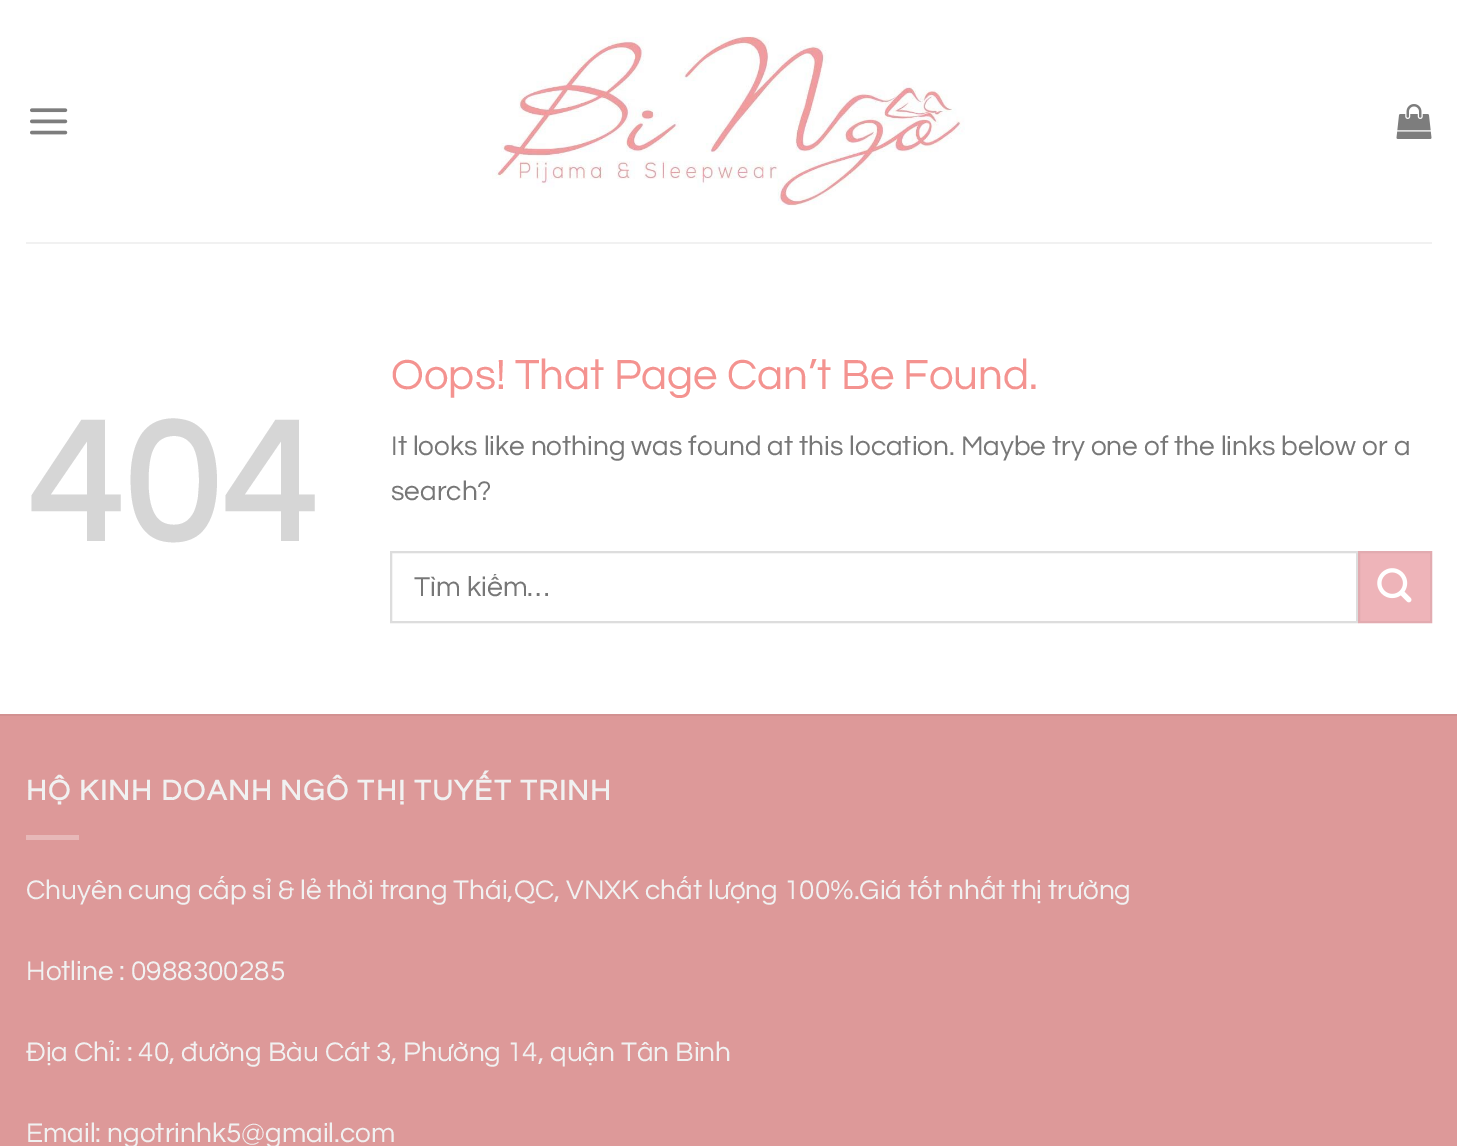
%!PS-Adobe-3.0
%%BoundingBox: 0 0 1457 1146
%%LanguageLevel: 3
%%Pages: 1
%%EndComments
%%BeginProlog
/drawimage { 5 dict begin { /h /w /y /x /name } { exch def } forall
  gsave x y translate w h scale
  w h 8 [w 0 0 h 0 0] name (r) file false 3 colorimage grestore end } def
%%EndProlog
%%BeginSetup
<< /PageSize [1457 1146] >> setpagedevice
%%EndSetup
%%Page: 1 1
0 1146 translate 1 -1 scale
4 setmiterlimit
1 setgray
0 0 1457 1146 rectfill
(images/1.raw) 30 108 38 27 drawimage
(images/2.raw) 492 36 473 170 drawimage
(images/3.raw) 1396 104 36 35 drawimage
0.945 setgray
26 242 1406 2 rectfill
0.867 setgray
2 setlinewidth
391 552 966 70 rectstroke
0.933 0.706 0.725 setrgbcolor
newpath 1359 552 moveto 1431 552 lineto 1431 622 lineto 1359 622 lineto closepath gsave fill grestore
0.886 0.671 0.69 setrgbcolor
stroke
(images/4.raw) 1377 568 35 35 drawimage
0.867 0.6 0.6 setrgbcolor
0 716 1457 430 rectfill
0.824 0.569 0.569 setrgbcolor
0 714 1457 2 rectfill
0.906 0.722 0.722 setrgbcolor
26 835 53 5 rectfill
/Questrial-Bold [176 0 0 -176 0 0] selectfont
0.839 setgray
26 541 moveto (404) show
/Questrial-Regular [43.75 0 0 -43.75 0 0] selectfont
0.957 0.576 0.565 setrgbcolor
391 389 moveto (Oops! That Page Can’t Be Found.) show
/Questrial-Regular [28 0 0 -28 0 0] selectfont
0.467 setgray
391 455 moveto (It looks like nothing was found at this location. Maybe try one of the links below or a) show
391 500 moveto (search?) show
gsave
413 574 915 28 rectclip
/Questrial-Regular [28.5 0 0 -28.5 0 0] selectfont
414 596 moveto (Tìm kiếm…) show
grestore
/Questrial-Bold [29.4 0 0 -29.4 0 0] selectfont
0.945 setgray
26 800 moveto 1.5 0 (HỘ KINH DOANH NGÔ THỊ TUYẾT TRINH) ashow
/Questrial-Regular [28 0 0 -28 0 0] selectfont
26 899 moveto (Chuyên cung cấp sỉ & lẻ thời trang Thái,QC, VNXK chất lượng 100%.Giá tốt nhất thị trường) show
26 980 moveto (Hotline : 0988300285) show
26 1061 moveto (Địa Chỉ: : 40, đường Bàu Cát 3, Phường 14, quận Tân Bình) show
26 1142 moveto (Email: ngotrinhk5@gmail.com) show
showpage
%%EOF
